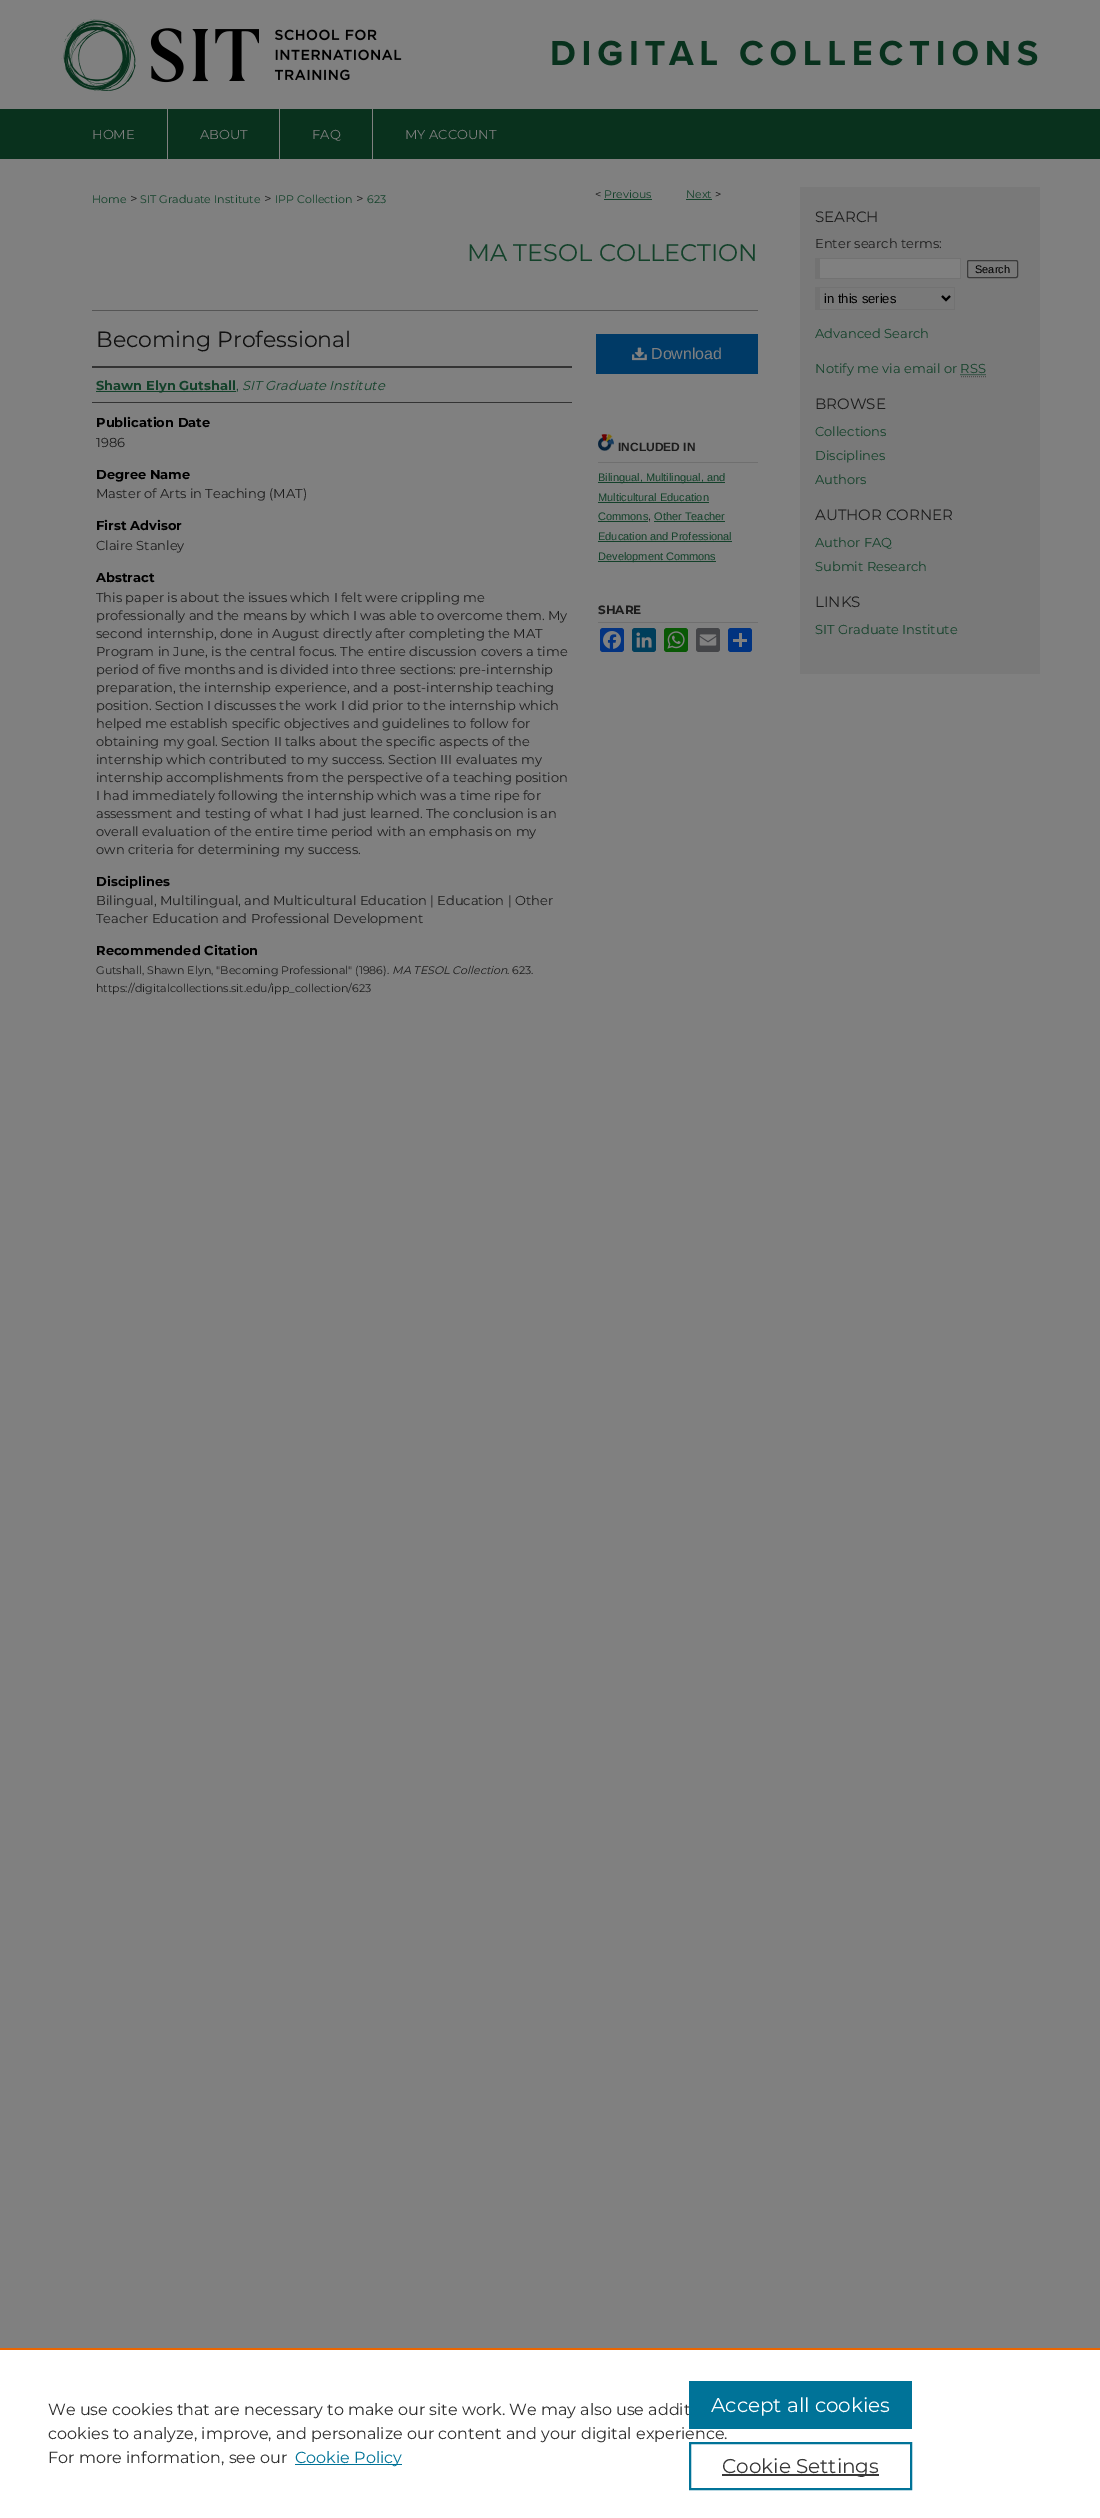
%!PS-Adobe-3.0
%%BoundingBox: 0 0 1100 2518
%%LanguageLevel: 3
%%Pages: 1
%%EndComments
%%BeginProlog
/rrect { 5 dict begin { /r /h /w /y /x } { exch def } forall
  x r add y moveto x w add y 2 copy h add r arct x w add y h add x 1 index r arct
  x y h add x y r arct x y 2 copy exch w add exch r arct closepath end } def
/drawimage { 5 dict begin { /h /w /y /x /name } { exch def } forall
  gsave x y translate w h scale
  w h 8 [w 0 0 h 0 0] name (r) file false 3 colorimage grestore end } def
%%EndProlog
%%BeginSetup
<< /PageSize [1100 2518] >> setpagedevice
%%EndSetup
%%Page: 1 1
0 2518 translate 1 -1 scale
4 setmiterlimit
0.502 setgray
0 0 1100 2518 rectfill
0.035 0.192 0.114 setrgbcolor
0 109 1100 50 rectfill
(images/1.raw) 61 19 977 72 drawimage
0.502 setgray
167 109 1 50 rectfill
279 109 1 50 rectfill
372 109 1 50 rectfill
0.075 0.255 0.165 setrgbcolor
604 199 48 1 rectfill
686 199 26 1 rectfill
0.333 setgray
92 310 666 1 rectfill
0.2 setgray
92 366 480 2 rectfill
92 402 480 1 rectfill
0.075 0.255 0.165 setrgbcolor
96 391 140 1 rectfill
0 0.227 0.4 setrgbcolor
596 334 162 40 rectfill
(images/2.raw) 632 347 15 14 drawimage
(images/3.raw) 598 434 16 17 drawimage
0.435 setgray
598 462 160 1 rectfill
0.075 0.255 0.165 setrgbcolor
598 482 127 1 rectfill
598 502 111 1 rectfill
598 521 50 1 rectfill
654 521 71 1 rectfill
598 541 134 1 rectfill
598 561 118 1 rectfill
0.435 setgray
598 622 160 1 rectfill
0.016 0.2 0.502 setrgbcolor
600 628 24 24 3 rrect fill
(images/4.raw) 603 631 18 18 drawimage
0 0.243 0.357 setrgbcolor
632 628 24 24 3 rrect fill
(images/5.raw) 636 632 16 16 drawimage
0.035 0.345 0.02 setrgbcolor
664 628 24 24 3 rrect fill
(images/6.raw) 667 631 18 18 drawimage
0.267 0.271 0.282 setrgbcolor
696 628 24 24 3 rrect fill
(images/7.raw) 699 634 18 12 drawimage
0.004 0.2 0.502 setrgbcolor
728 628 24 24 3 rrect fill
0.502 setgray
739 633 3 14 rectfill
733 639 14 3 rectfill
0.475 setgray
800 187 240 487 rectfill
0.502 setgray
820 259 140 19 rectfill
0.447 setgray
815 258 146 1 rectfill
960 258 1 21 rectfill
815 278 146 1 rectfill
815 258 5 21 rectfill
0.231 setgray
967.5 260.5 50 17 1.5 rrect stroke
0.447 setgray
815 287 140 1 rectfill
954 287 1 23 rectfill
815 309 140 1 rectfill
815 287 5 23 rectfill
0 setgray
2 setlinewidth
newpath 942 296 moveto 946 300 lineto 950 296 lineto stroke
0.302 setgray
1 setlinewidth
[1 1] 0 setdash
newpath 961 376.5 moveto 986 376.5 lineto stroke
1 setgray
0 2350 1100 168 rectfill
0.922 0.396 0 setrgbcolor
0 2348 1100 2 rectfill
0 0.451 0.596 setrgbcolor
295 2464 107 1 rectfill
/Montserrat-Regular [13 0 0 -13 0 0] selectfont
0.502 setgray
92 139 moveto (HOME) show
200 139 moveto (ABOUT) show
312 139 moveto (FAQ) show
405 139 moveto (MY ACCOUNT) show
/Montserrat-Regular [11 0 0 -11 0 0] selectfont
0.075 0.255 0.165 setrgbcolor
92 203 moveto (Home) show
/Montserrat-Regular [13 0 0 -13 0 0] selectfont
0.11 setgray
130 203 moveto (>) show
/Montserrat-Regular [11 0 0 -11 0 0] selectfont
0.075 0.255 0.165 setrgbcolor
140 203 moveto (SIT Graduate Institute) show
/Montserrat-Regular [13 0 0 -13 0 0] selectfont
0.11 setgray
264 203 moveto (>) show
/Montserrat-Regular [11 0 0 -11 0 0] selectfont
0.075 0.255 0.165 setrgbcolor
275 203 moveto (IPP Collection) show
/Montserrat-Regular [13 0 0 -13 0 0] selectfont
0.11 setgray
356 203 moveto (>) show
/Montserrat-Regular [11 0 0 -11 0 0] selectfont
0.075 0.255 0.165 setrgbcolor
367 203 moveto (623) show
0.067 setgray
595 198 moveto (<) show
0.075 0.255 0.165 setrgbcolor
604 198 moveto (Previous) show
686 198 moveto (Next) show
0.067 setgray
715 198 moveto (>) show
/Montserrat-Regular [24 0 0 -24 0 0] selectfont
0.075 0.255 0.165 setrgbcolor
467 261 moveto (MA TESOL COLLECTION) show
/Montserrat-Regular [22 0 0 -22 0 0] selectfont
0.067 setgray
96 347 moveto (Becoming Professional) show
/Montserrat-Bold [13 0 0 -13 0 0] selectfont
0.075 0.255 0.165 setrgbcolor
96 390 moveto (Shawn Elyn Gutshall) show
/Montserrat-Regular [13 0 0 -13 0 0] selectfont
236 390 moveto (,) show
/Montserrat-Italic [13 0 0 -13 0 0] selectfont
242 390 moveto (SIT Graduate Institute) show
/Montserrat-Bold [13 0 0 -13 0 0] selectfont
0 setgray
96 427 moveto (Publication Date) show
/Montserrat-Regular [13 0 0 -13 0 0] selectfont
0.11 setgray
96 447 moveto (1986) show
/Montserrat-Bold [13 0 0 -13 0 0] selectfont
0 setgray
96 479 moveto (Degree Name) show
/Montserrat-Regular [13 0 0 -13 0 0] selectfont
0.11 setgray
96 498 moveto (Master of Arts in Teaching \(MAT\)) show
/Montserrat-Bold [13 0 0 -13 0 0] selectfont
0 setgray
96 530 moveto (First Advisor) show
/Montserrat-Regular [13 0 0 -13 0 0] selectfont
0.11 setgray
96 550 moveto (Claire Stanley) show
/Montserrat-Bold [13 0 0 -13 0 0] selectfont
0 setgray
96 582 moveto (Abstract) show
/Montserrat-Regular [13 0 0 -13 0 0] selectfont
0.11 setgray
96 602 moveto (This paper is about the issues which I felt were crippling me) show
96 620 moveto (professionally and the means by which I was able to overcome them. My) show
96 638 moveto (second internship, done in August directly after completing the MAT) show
96 656 moveto (Program in June, is the central focus. The entire discussion covers a time) show
96 674 moveto (period of five months and is divided into three sections: pre-internship) show
96 692 moveto (preparation, the internship experience, and a post-internship teaching) show
96 710 moveto (position. Section I discusses the work I did prior to the internship which) show
96 728 moveto (helped me establish specific objectives and guidelines to follow for) show
96 746 moveto (obtaining my goal. Section II talks about the specific aspects of the) show
96 764 moveto (internship which contributed to my success. Section III evaluates my) show
96 782 moveto (internship accomplishments from the perspective of a teaching position) show
96 800 moveto (I had immediately following the internship which was a time ripe for) show
96 818 moveto (assessment and testing of what I had just learned. The conclusion is an) show
96 836 moveto (overall evaluation of the entire time period with an emphasis on my) show
96 854 moveto (own criteria for determining my success.) show
/Montserrat-Bold [13 0 0 -13 0 0] selectfont
0 setgray
96 886 moveto (Disciplines) show
/Montserrat-Regular [13 0 0 -13 0 0] selectfont
0.11 setgray
96 905 moveto (Bilingual, Multilingual, and Multicultural Education | Education | Other) show
96 923 moveto (Teacher Education and Professional Development) show
/Montserrat-Bold [13 0 0 -13 0 0] selectfont
0 setgray
96 955 moveto (Recommended Citation) show
/Montserrat-Regular [11 0 0 -11 0 0] selectfont
0.11 setgray
96 974 moveto (Gutshall, Shawn Elyn, "Becoming Professional" \(1986\).) show
/Montserrat-Italic [11 0 0 -11 0 0] selectfont
392 974 moveto (MA TESOL Collection) show
/Montserrat-Regular [11 0 0 -11 0 0] selectfont
507 974 moveto (. 623.) show
96 992 moveto (https://digitalcollections.sit.edu/ipp_collection/623) show
/LiberationSans-Regular [16 0 0 -16 0 0] selectfont
0.502 setgray
651 359 moveto (Download) show
/LiberationSans-Bold [12 0 0 -12 0 0] selectfont
0.11 setgray
618 451 moveto (INCLUDED IN) show
/LiberationSans-Regular [11 0 0 -11 0 0] selectfont
0.075 0.255 0.165 setrgbcolor
598 481 moveto (Bilingual, Multilingual, and) show
598 501 moveto (Multicultural Education) show
598 520 moveto (Commons) show
0.11 setgray
648 520 moveto (,) show
0.075 0.255 0.165 setrgbcolor
654 520 moveto (Other Teacher) show
598 540 moveto (Education and Professional) show
598 560 moveto (Development Commons) show
/Montserrat-Bold [12 0 0 -12 0 0] selectfont
0.11 setgray
598 614 moveto (SHARE) show
/Montserrat-Regular [15 0 0 -15 0 0] selectfont
815 222 moveto (SEARCH) show
/Montserrat-Regular [13 0 0 -13 0 0] selectfont
815 248 moveto (Enter search terms:) show
/LiberationSans-Regular [11 0 0 -11 0 0] selectfont
0 setgray
975 273 moveto (Search) show
/LiberationSans-Regular [13 0 0 -13 0 0] selectfont
824 303 moveto (in this series) show
/Montserrat-Regular [13 0 0 -13 0 0] selectfont
0.075 0.255 0.165 setrgbcolor
815 338 moveto (Advanced Search) show
815 373 moveto (Notify me via email or RSS) show
0.071 0.247 0.161 setrgbcolor
newpath 960.5 374.5 moveto 986 374.5 lineto stroke
/Montserrat-Regular [15 0 0 -15 0 0] selectfont
0.11 setgray
815 409 moveto (BROWSE) show
/Montserrat-Regular [13 0 0 -13 0 0] selectfont
0.075 0.255 0.165 setrgbcolor
815 436 moveto (Collections) show
815 460 moveto (Disciplines) show
815 484 moveto (Authors) show
/Montserrat-Regular [15 0 0 -15 0 0] selectfont
0.11 setgray
815 520 moveto (AUTHOR CORNER) show
/Montserrat-Regular [13 0 0 -13 0 0] selectfont
0.075 0.255 0.165 setrgbcolor
815 547 moveto (Author FAQ) show
815 571 moveto (Submit Research) show
/Montserrat-Regular [15 0 0 -15 0 0] selectfont
0.11 setgray
815 607 moveto (LINKS) show
/Montserrat-Regular [13 0 0 -13 0 0] selectfont
0.075 0.255 0.165 setrgbcolor
815 634 moveto (SIT Graduate Institute) show
/Montserrat-Regular [16 0 0 -16 0 0] selectfont
0.18 setgray
48 2415 moveto (We use cookies that are necessary to make our site work. We may also use addit) show
48 2439 moveto (cookies to analyze, improve, and personalize our content and your digital experience.) show
48 2463 moveto (For more information, see our) show
0 0.451 0.596 setrgbcolor
295 2463 moveto (Cookie Policy) show
689 2381 223 48 rectfill
/Montserrat-Regular [20 0 0 -20 0 0] selectfont
1 setgray
711 2412 moveto (Accept all cookies) show
0 0.451 0.596 setrgbcolor
2 setlinewidth
[] 0 setdash
690 2443 221 46 rectstroke
0.22 setgray
722 2474 157 2 rectfill
722 2473 moveto (Cookie Settings) show
showpage
%%EOF
